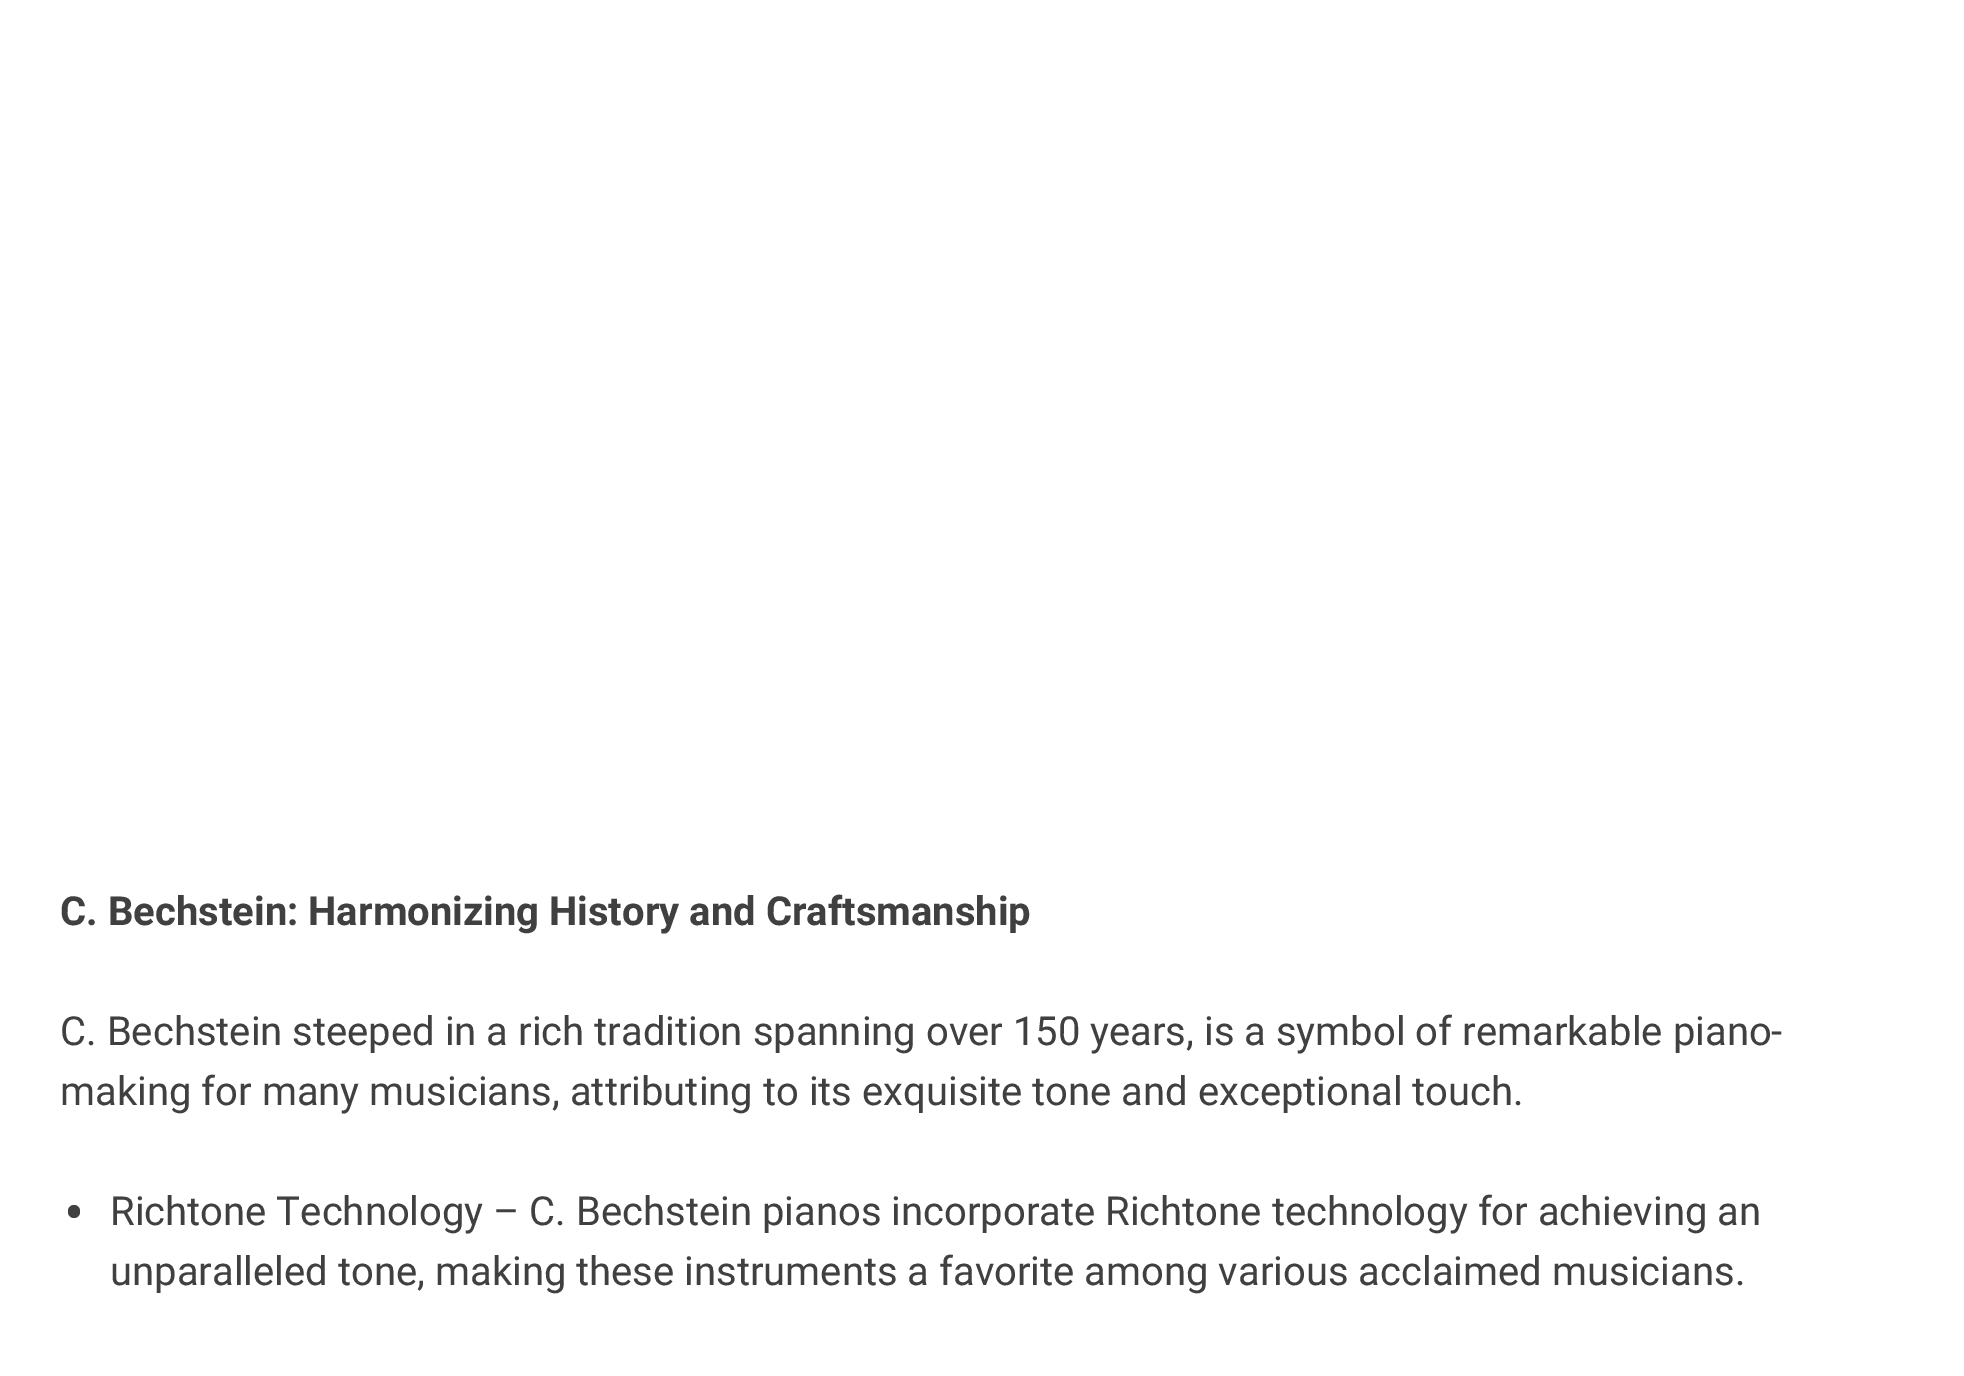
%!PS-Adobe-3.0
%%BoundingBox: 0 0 1964 1376
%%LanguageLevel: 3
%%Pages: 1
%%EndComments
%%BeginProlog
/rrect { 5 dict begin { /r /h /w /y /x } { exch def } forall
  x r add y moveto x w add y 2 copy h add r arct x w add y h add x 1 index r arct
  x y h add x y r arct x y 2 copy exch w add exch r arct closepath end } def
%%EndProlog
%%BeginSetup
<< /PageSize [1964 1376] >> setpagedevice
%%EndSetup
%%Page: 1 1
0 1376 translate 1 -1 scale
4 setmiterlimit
1 setgray
0 0 1964 1376 rectfill
0.251 setgray
68 1205 12 13 6 rrect fill
/Roboto-Bold [40 0 0 -40 0 0] selectfont
60 925 moveto (C. Bechstein: Harmonizing History and Craftsmanship) show
/Roboto-Regular [40 0 0 -40 0 0] selectfont
60 1045 moveto (C. Bechstein steeped in a rich tradition spanning over 150 years, is a symbol of remarkable piano-) show
60 1105 moveto (making for many musicians, attributing to its exquisite tone and exceptional touch.) show
110 1225 moveto (Richtone Technology – C. Bechstein pianos incorporate Richtone technology for achieving an) show
110 1285 moveto (unparalleled tone, making these instruments a favorite among various acclaimed musicians.) show
showpage
%%EOF
